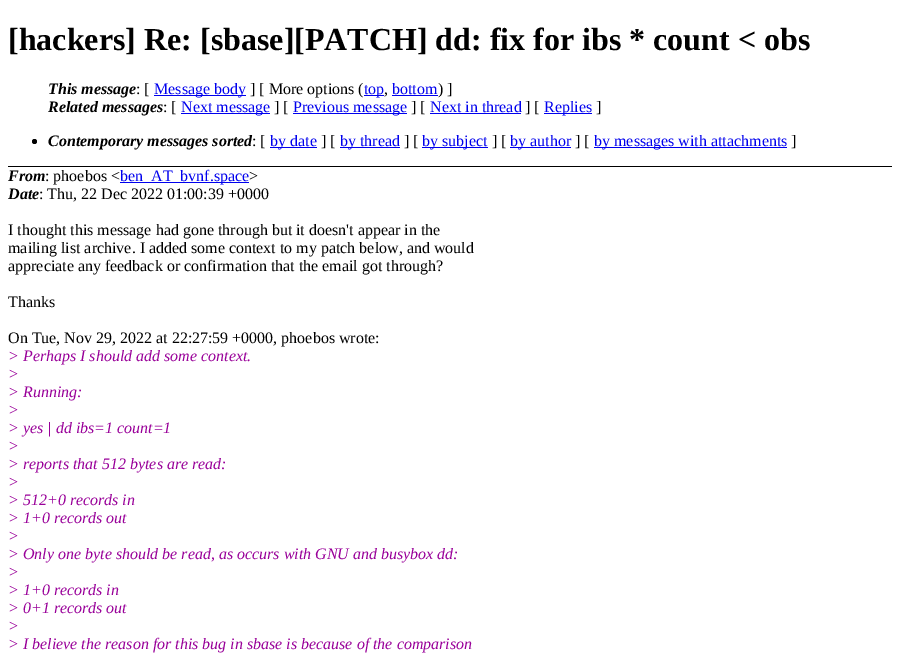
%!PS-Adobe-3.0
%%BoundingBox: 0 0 900 654
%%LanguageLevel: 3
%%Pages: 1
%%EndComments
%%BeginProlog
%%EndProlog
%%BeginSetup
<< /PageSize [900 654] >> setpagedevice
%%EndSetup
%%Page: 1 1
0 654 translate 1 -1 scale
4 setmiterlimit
1 setgray
0 0 900 654 rectfill
0 setgray
8 166 884 1 rectfill
0 0 0.933 setrgbcolor
154 95 92 1 rectfill
364 95 20 1 rectfill
392 95 46 1 rectfill
181 113 89 1 rectfill
293 113 114 1 rectfill
430 113 91 1 rectfill
544 113 48 1 rectfill
0 setgray
newpath 34.5 141.5 2.5 0 360 arc closepath fill
0 0 0.933 setrgbcolor
270 147 47 1 rectfill
340 147 60 1 rectfill
422 147 66 1 rectfill
510 147 61 1 rectfill
594 147 193 1 rectfill
120 182 129 1 rectfill
/LiberationSerif-Bold [32 0 0 -32 0 0] selectfont
0 setgray
8 50 moveto ([hackers] Re: [sbase][PATCH] dd: fix for ibs * count < obs) show
/LiberationSerif-BoldItalic [16 0 0 -16 0 0] selectfont
48 94 moveto (This message) show
/LiberationSerif-Regular [16 0 0 -16 0 0] selectfont
136 94 moveto (: [) show
0 0 0.933 setrgbcolor
154 94 moveto (Message body) show
0 setgray
250 94 moveto (] [ More options \() show
0 0 0.933 setrgbcolor
364 94 moveto (top) show
0 setgray
384 94 moveto (,) show
0 0 0.933 setrgbcolor
392 94 moveto (bottom) show
0 setgray
438 94 moveto (\) ]) show
/LiberationSerif-BoldItalic [16 0 0 -16 0 0] selectfont
48 112 moveto (Related messages) show
/LiberationSerif-Regular [16 0 0 -16 0 0] selectfont
163 112 moveto (: [) show
0 0 0.933 setrgbcolor
181 112 moveto (Next message) show
0 setgray
274 112 moveto (] [) show
0 0 0.933 setrgbcolor
293 112 moveto (Previous message) show
0 setgray
411 112 moveto (] [) show
0 0 0.933 setrgbcolor
430 112 moveto (Next in thread) show
0 setgray
525 112 moveto (] [) show
0 0 0.933 setrgbcolor
544 112 moveto (Replies) show
0 setgray
596 112 moveto (]) show
/LiberationSerif-BoldItalic [16 0 0 -16 0 0] selectfont
48 146 moveto (Contemporary messages sorted) show
/LiberationSerif-Regular [16 0 0 -16 0 0] selectfont
252 146 moveto (: [) show
0 0 0.933 setrgbcolor
270 146 moveto (by date) show
0 setgray
321 146 moveto (] [) show
0 0 0.933 setrgbcolor
340 146 moveto (by thread) show
0 setgray
404 146 moveto (] [) show
0 0 0.933 setrgbcolor
422 146 moveto (by subject) show
0 setgray
492 146 moveto (] [) show
0 0 0.933 setrgbcolor
510 146 moveto (by author) show
0 setgray
575 146 moveto (] [) show
0 0 0.933 setrgbcolor
594 146 moveto (by messages with attachments) show
0 setgray
791 146 moveto (]) show
/LiberationSerif-BoldItalic [16 0 0 -16 0 0] selectfont
8 181 moveto (From) show
/LiberationSerif-Regular [16 0 0 -16 0 0] selectfont
45 181 moveto (: phoebos <) show
0 0 0.933 setrgbcolor
120 181 moveto (ben_AT_bvnf.space) show
0 setgray
249 181 moveto (>) show
/LiberationSerif-BoldItalic [16 0 0 -16 0 0] selectfont
8 199 moveto (Date) show
/LiberationSerif-Regular [16 0 0 -16 0 0] selectfont
39 199 moveto (: Thu, 22 Dec 2022 01:00:39 +0000) show
8 235 moveto (I thought this message had gone through but it doesn't appear in the) show
8 253 moveto (mailing list archive. I added some context to my patch below, and would) show
8 271 moveto (appreciate any feedback or confirmation that the email got through?) show
8 307 moveto (Thanks) show
8 343 moveto (On Tue, Nov 29, 2022 at 22:27:59 +0000, phoebos wrote:) show
/LiberationSerif-Italic [16 0 0 -16 0 0] selectfont
0.6 0 0.6 setrgbcolor
8 361 moveto (> Perhaps I should add some context.) show
8 379 moveto (>) show
8 397 moveto (> Running:) show
8 415 moveto (>) show
8 433 moveto (> yes | dd ibs=1 count=1) show
8 451 moveto (>) show
8 469 moveto (> reports that 512 bytes are read:) show
8 487 moveto (>) show
8 505 moveto (> 512+0 records in) show
8 523 moveto (> 1+0 records out) show
8 541 moveto (>) show
8 559 moveto (> Only one byte should be read, as occurs with GNU and busybox dd:) show
8 577 moveto (>) show
8 595 moveto (> 1+0 records in) show
8 613 moveto (> 0+1 records out) show
8 631 moveto (>) show
8 649 moveto (> I believe the reason for this bug in sbase is because of the comparison) show
showpage
%%EOF
